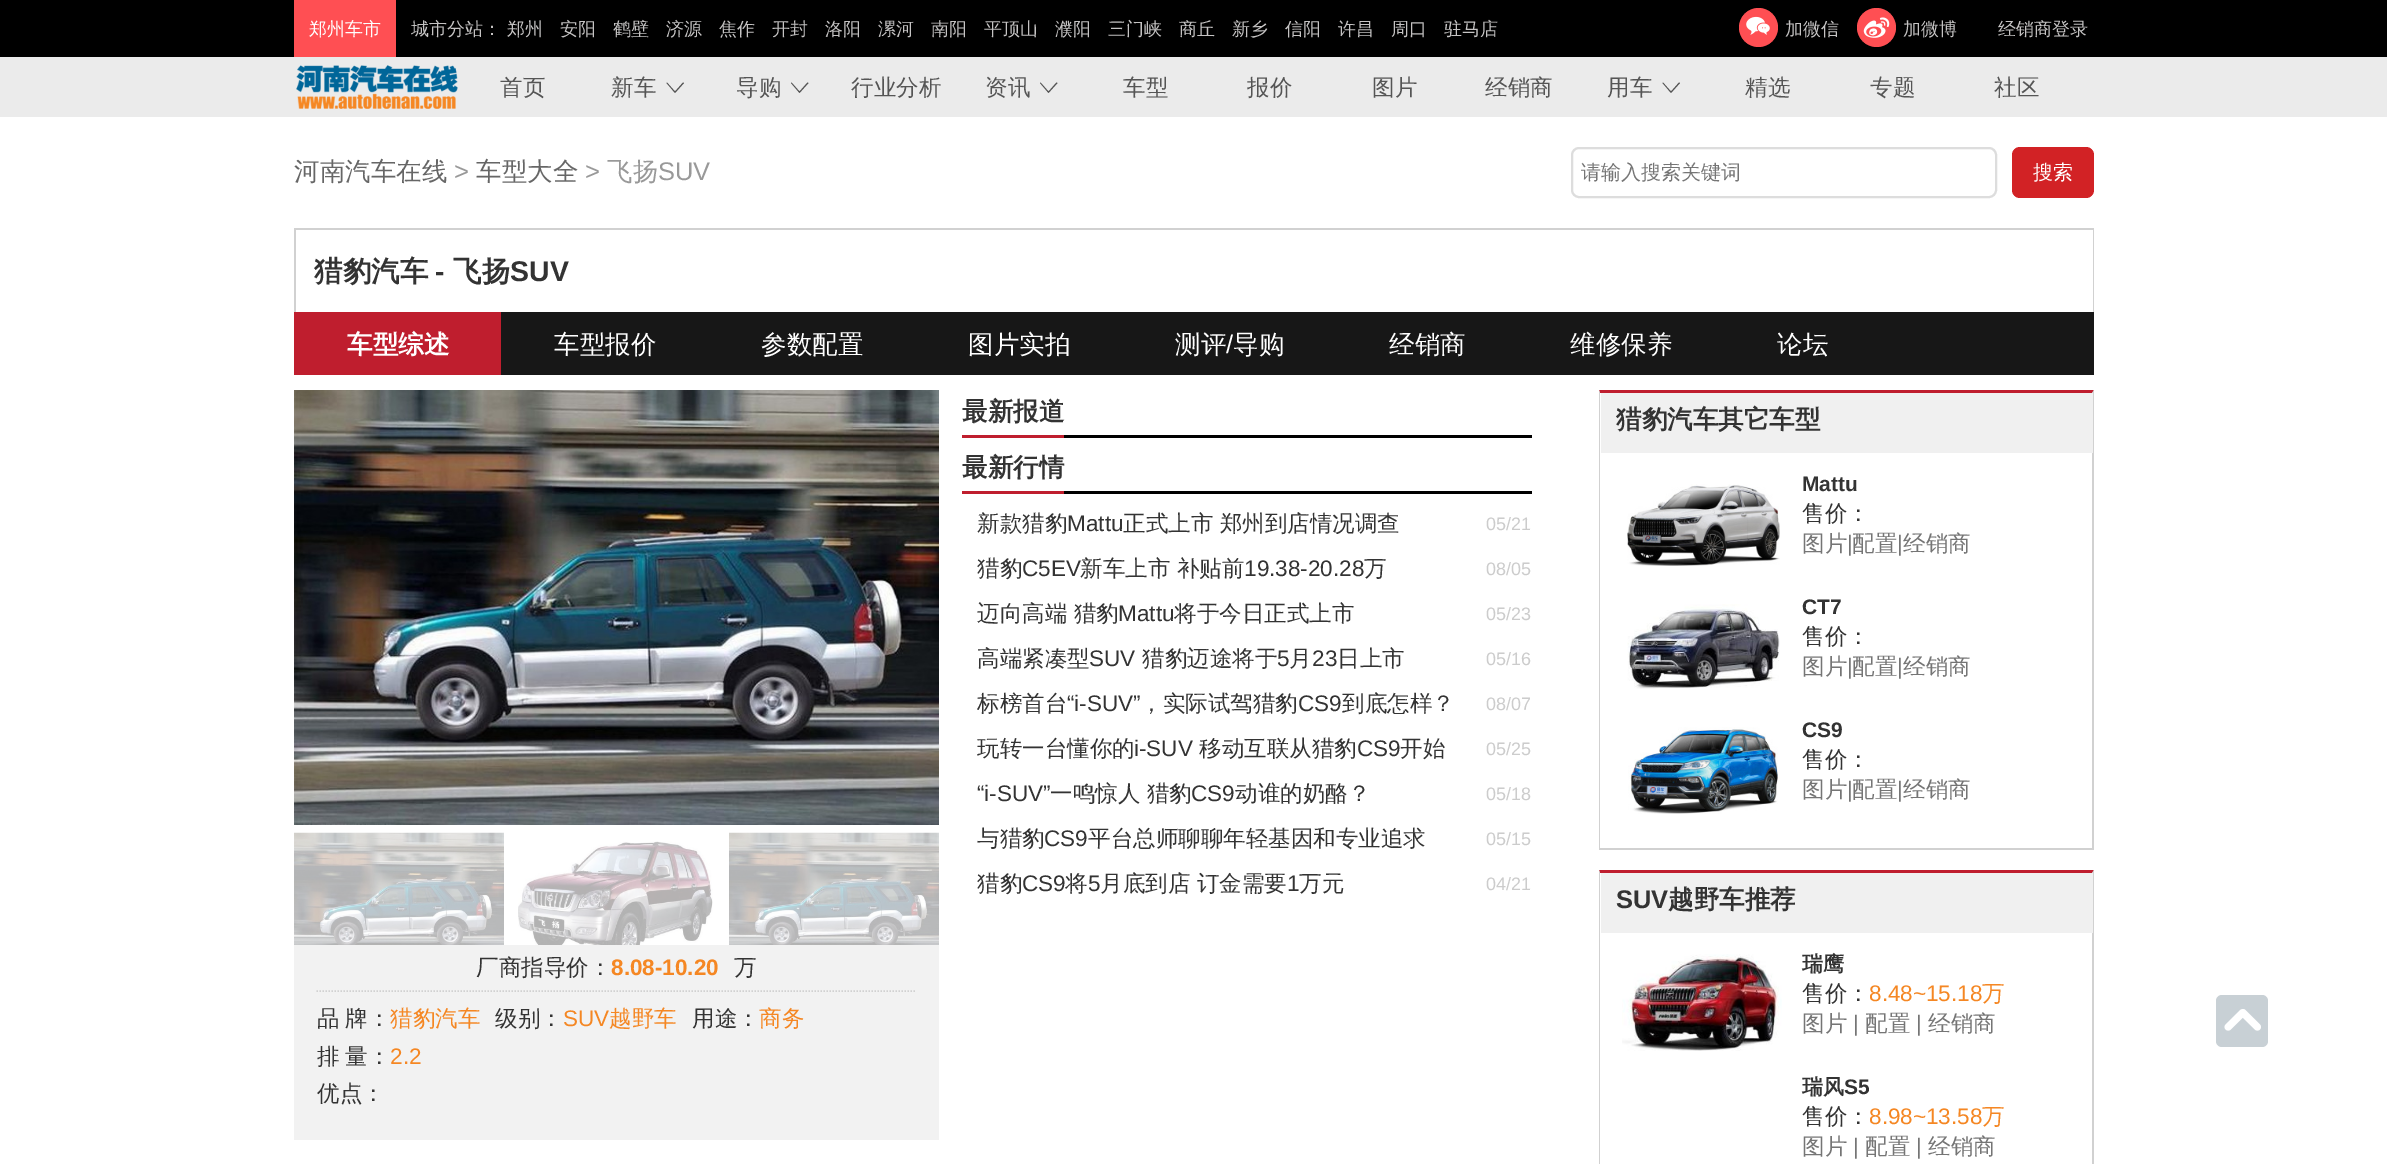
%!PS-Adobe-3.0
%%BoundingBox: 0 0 2387 1164
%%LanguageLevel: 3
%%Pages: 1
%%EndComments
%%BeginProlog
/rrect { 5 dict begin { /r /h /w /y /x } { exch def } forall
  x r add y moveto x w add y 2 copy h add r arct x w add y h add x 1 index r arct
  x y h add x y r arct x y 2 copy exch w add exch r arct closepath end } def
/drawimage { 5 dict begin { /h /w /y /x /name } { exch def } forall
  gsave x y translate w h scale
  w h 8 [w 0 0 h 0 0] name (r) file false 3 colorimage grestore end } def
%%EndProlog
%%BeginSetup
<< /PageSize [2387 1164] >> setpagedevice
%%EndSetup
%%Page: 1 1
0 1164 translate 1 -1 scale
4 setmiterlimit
1 setgray
0 0 2387 1164 rectfill
0 setgray
0 0 2387 57 rectfill
1 0.31 0.325 setrgbcolor
294 0 102 57 rectfill
newpath 1758.5 27.5 19.5 0 360 arc closepath fill
(images/1.raw) 1746 16 24 19 drawimage
newpath 1876.5 27.5 19.5 0 360 arc closepath fill
(images/2.raw) 1863 17 27 21 drawimage
0.922 setgray
0 57 2387 60 rectfill
(images/3.raw) 296 65 162 44 drawimage
0.333 setgray
newpath 683 82.5 moveto 675 91.5 lineto 667 82.5 lineto 666.5 83 lineto 675 93 lineto 684 83 lineto closepath fill
newpath 807.5 82.5 moveto 799.5 91.5 lineto 791.5 82.5 lineto 791 83 lineto 799.5 93 lineto 808.5 83 lineto closepath fill
newpath 1056.5 82.5 moveto 1048.5 91.5 lineto 1040.5 82.5 lineto 1040 83 lineto 1048.5 93 lineto 1057.5 83 lineto closepath fill
newpath 1679 82.5 moveto 1671 91.5 lineto 1663 82.5 lineto 1662.5 83 lineto 1671 93 lineto 1680 83 lineto closepath fill
0.867 setgray
2 setlinewidth
1572 148 424 49 7 rrect stroke
0.824 0.133 0.145 setrgbcolor
2012 147 82 51 8 rrect fill
0.82 setgray
294 228 1800 2 rectfill
2093 228 1 84 rectfill
294 228 2 84 rectfill
0.09 setgray
501 312 1593 63 rectfill
0.749 0.118 0.18 setrgbcolor
294 312 207 63 rectfill
(images/4.raw) 294 390 645 435 drawimage
(images/5.raw) 294 832 210 113 drawimage
(images/6.raw) 518 841 195 104 drawimage
(images/7.raw) 729 832 210 113 drawimage
0.949 setgray
294 945 645 195 rectfill
0.82 setgray
1.5 setlinewidth
[1.5 1.5] 0 setdash
newpath 316.5 991 moveto 916.5 991 lineto stroke
0 setgray
1064 435 468 3 rectfill
0.749 0.118 0.18 setrgbcolor
962 435 102 3 rectfill
0 setgray
1064 491 468 3 rectfill
0.749 0.118 0.18 setrgbcolor
962 491 102 3 rectfill
newpath 1599 390 moveto 2094 390 lineto 2092 393 lineto 1600 393 lineto closepath fill
0.82 setgray
newpath 2094 390 moveto 2094 849 lineto 2092 848 lineto 2092 393 lineto closepath fill
1599 848 495 2 rectfill
newpath 1599 849 moveto 1599 390 lineto 1600 393 lineto 1600 848 lineto closepath fill
0.941 setgray
1601 393 492 60 rectfill
(images/8.raw) 1627 484 153 82 drawimage
(images/9.raw) 1627 604 153 85 drawimage
(images/10.raw) 1628 727 150 87 drawimage
0.749 0.118 0.18 setrgbcolor
newpath 1599 870 moveto 2094 870 lineto 2092 873 lineto 1600 873 lineto closepath fill
0.82 setgray
newpath 2094 870 moveto 2094 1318 lineto 2092 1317 lineto 2092 873 lineto closepath fill
newpath 1599 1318 moveto 1599 870 lineto 1600 873 lineto 1600 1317 lineto closepath fill
0.941 setgray
1601 873 492 60 rectfill
(images/11.raw) 1622 954 160 97 drawimage
0.784 0.816 0.835 setrgbcolor
2216 995 52 52 6 rrect fill
(images/12.raw) 2224 1009 37 22 drawimage
/WenQuanYiZenHei-Medium [18 0 0 -18 0 0] selectfont
1 setgray
309 35 moveto (郑州车市) show
0.773 0.765 0.765 setrgbcolor
411 35 moveto (城市分站：) show
507 35 moveto (郑州) show
560 35 moveto (安阳) show
613 35 moveto (鹤壁) show
666 35 moveto (济源) show
719 35 moveto (焦作) show
772 35 moveto (开封) show
825 35 moveto (洛阳) show
878 35 moveto (漯河) show
931 35 moveto (南阳) show
984 35 moveto (平顶山) show
1055 35 moveto (濮阳) show
1108 35 moveto (三门峡) show
1179 35 moveto (商丘) show
1232 35 moveto (新乡) show
1285 35 moveto (信阳) show
1338 35 moveto (许昌) show
1391 35 moveto (周口) show
1444 35 moveto (驻马店) show
1785 35 moveto (加微信) show
1903 35 moveto (加微博) show
1998 35 moveto (经销商登录) show
/WenQuanYiZenHei-Medium [22.5 0 0 -22.5 0 0] selectfont
0.333 setgray
500 95 moveto (首页) show
611 95 moveto (新车) show
736 95 moveto (导购) show
851 95 moveto (行业分析) show
985 95 moveto (资讯) show
1123 95 moveto (车型) show
1247 95 moveto (报价) show
1372 95 moveto (图片) show
1485 95 moveto (经销商) show
1607 95 moveto (用车) show
1745 95 moveto (精选) show
1870 95 moveto (专题) show
1994 95 moveto (社区) show
/WenQuanYiZenHei-Medium [25.5 0 0 -25.5 0 0] selectfont
0.4 setgray
294 180 moveto (河南汽车在线) show
/LiberationSans-Regular [25.5 0 0 -25.5 0 0] selectfont
0.6 setgray
454 180 moveto (>) show
/WenQuanYiZenHei-Medium [25.5 0 0 -25.5 0 0] selectfont
0.4 setgray
476 180 moveto (车型大全) show
/LiberationSans-Regular [25.5 0 0 -25.5 0 0] selectfont
0.6 setgray
585 180 moveto (>) show
/WenQuanYiZenHei-Medium [25.5 0 0 -25.5 0 0] selectfont
607 180 moveto (飞扬) show
/LiberationSans-Regular [25.5 0 0 -25.5 0 0] selectfont
658 180 moveto (SUV) show
/WenQuanYiZenHei-Medium [20 0 0 -20 0 0] selectfont
0.459 setgray
1581 179 moveto (请输入搜索关键词) show
1 setgray
2033 179 moveto (搜索) show
/WenQuanYiZenHei-Bold [28.5 0 0 -28.5 0 0] selectfont
0.2 setgray
314 281 moveto (猎豹汽车) show
/LiberationSans-Bold [28.5 0 0 -28.5 0 0] selectfont
435 281 moveto (-) show
/WenQuanYiZenHei-Bold [28.5 0 0 -28.5 0 0] selectfont
453 281 moveto (飞扬) show
/LiberationSans-Bold [28.5 0 0 -28.5 0 0] selectfont
510 281 moveto (SUV) show
/WenQuanYiZenHei-Bold [25.5 0 0 -25.5 0 0] selectfont
1 setgray
347 353 moveto (车型综述) show
/WenQuanYiZenHei-Medium [25.5 0 0 -25.5 0 0] selectfont
554 353 moveto (车型报价) show
761 353 moveto (参数配置) show
968 353 moveto (图片实拍) show
1175 353 moveto (测评) show
/LiberationSans-Regular [25.5 0 0 -25.5 0 0] selectfont
1226 353 moveto (/) show
/WenQuanYiZenHei-Medium [25.5 0 0 -25.5 0 0] selectfont
1233 353 moveto (导购) show
1389 353 moveto (经销商) show
1570 353 moveto (维修保养) show
1777 353 moveto (论坛) show
/WenQuanYiZenHei-Medium [22.5 0 0 -22.5 0 0] selectfont
0.2 setgray
476 975 moveto (厂商指导价：) show
/LiberationSans-Bold [22.5 0 0 -22.5 0 0] selectfont
0.961 0.529 0.137 setrgbcolor
611 975 moveto (8.08-10.20) show
/WenQuanYiZenHei-Medium [22.5 0 0 -22.5 0 0] selectfont
0.2 setgray
734 975 moveto (万) show
317 1026 moveto (品) show
345 1026 moveto (牌：) show
0.961 0.529 0.137 setrgbcolor
390 1026 moveto (猎豹汽车) show
0.2 setgray
495 1026 moveto (级别：) show
/LiberationSans-Regular [22.5 0 0 -22.5 0 0] selectfont
0.961 0.529 0.137 setrgbcolor
563 1026 moveto (SUV) show
/WenQuanYiZenHei-Medium [22.5 0 0 -22.5 0 0] selectfont
609 1026 moveto (越野车) show
0.2 setgray
692 1026 moveto (用途：) show
0.961 0.529 0.137 setrgbcolor
759 1026 moveto (商务) show
0.2 setgray
317 1064 moveto (排) show
345 1064 moveto (量：) show
/LiberationSans-Regular [22.5 0 0 -22.5 0 0] selectfont
0.961 0.529 0.137 setrgbcolor
390 1064 moveto (2.2) show
/WenQuanYiZenHei-Medium [22.5 0 0 -22.5 0 0] selectfont
0.2 setgray
317 1101 moveto (优点：) show
/WenQuanYiZenHei-Bold [25.5 0 0 -25.5 0 0] selectfont
962 420 moveto (最新报道) show
962 476 moveto (最新行情) show
1 setgray
961 409 1 57 rectfill
/WenQuanYiZenHei-Medium [22.5 0 0 -22.5 0 0] selectfont
0.2 setgray
977 531 moveto (新款猎豹) show
/LiberationSans-Regular [22.5 0 0 -22.5 0 0] selectfont
1067 531 moveto (Mattu) show
/WenQuanYiZenHei-Medium [22.5 0 0 -22.5 0 0] selectfont
1123 531 moveto (正式上市 郑州到店情况调查) show
/LiberationSans-Regular [18 0 0 -18 0 0] selectfont
0.8 setgray
1486 530 moveto (05/21) show
/WenQuanYiZenHei-Medium [22.5 0 0 -22.5 0 0] selectfont
0.2 setgray
977 576 moveto (猎豹) show
/LiberationSans-Regular [22.5 0 0 -22.5 0 0] selectfont
1022 576 moveto (C5EV) show
/WenQuanYiZenHei-Medium [22.5 0 0 -22.5 0 0] selectfont
1080 576 moveto (新车上市 补贴前) show
/LiberationSans-Regular [22.5 0 0 -22.5 0 0] selectfont
1244 576 moveto (19.38-20.28) show
/WenQuanYiZenHei-Medium [22.5 0 0 -22.5 0 0] selectfont
1364 576 moveto (万) show
/LiberationSans-Regular [18 0 0 -18 0 0] selectfont
0.8 setgray
1486 575 moveto (08/05) show
/WenQuanYiZenHei-Medium [22.5 0 0 -22.5 0 0] selectfont
0.2 setgray
977 621 moveto (迈向高端 猎豹) show
/LiberationSans-Regular [22.5 0 0 -22.5 0 0] selectfont
1118 621 moveto (Mattu) show
/WenQuanYiZenHei-Medium [22.5 0 0 -22.5 0 0] selectfont
1174 621 moveto (将于今日正式上市) show
/LiberationSans-Regular [18 0 0 -18 0 0] selectfont
0.8 setgray
1486 620 moveto (05/23) show
/WenQuanYiZenHei-Medium [22.5 0 0 -22.5 0 0] selectfont
0.2 setgray
977 666 moveto (高端紧凑型) show
/LiberationSans-Regular [22.5 0 0 -22.5 0 0] selectfont
1089 666 moveto (SUV) show
/WenQuanYiZenHei-Medium [22.5 0 0 -22.5 0 0] selectfont
1142 666 moveto (猎豹迈途将于) show
/LiberationSans-Regular [22.5 0 0 -22.5 0 0] selectfont
1277 666 moveto (5) show
/WenQuanYiZenHei-Medium [22.5 0 0 -22.5 0 0] selectfont
1289 666 moveto (月) show
/LiberationSans-Regular [22.5 0 0 -22.5 0 0] selectfont
1312 666 moveto (23) show
/WenQuanYiZenHei-Medium [22.5 0 0 -22.5 0 0] selectfont
1337 666 moveto (日上市) show
/LiberationSans-Regular [18 0 0 -18 0 0] selectfont
0.8 setgray
1486 665 moveto (05/16) show
/WenQuanYiZenHei-Medium [22.5 0 0 -22.5 0 0] selectfont
0.2 setgray
977 711 moveto (标榜首台) show
/LiberationSans-Regular [22.5 0 0 -22.5 0 0] selectfont
1067 711 moveto (“i-SUV”) show
/WenQuanYiZenHei-Medium [22.5 0 0 -22.5 0 0] selectfont
1140 711 moveto (，实际试驾猎豹) show
/LiberationSans-Regular [22.5 0 0 -22.5 0 0] selectfont
1298 711 moveto (CS9) show
/WenQuanYiZenHei-Medium [22.5 0 0 -22.5 0 0] selectfont
1342 711 moveto (到底怎样？) show
/LiberationSans-Regular [18 0 0 -18 0 0] selectfont
0.8 setgray
1486 710 moveto (08/07) show
/WenQuanYiZenHei-Medium [22.5 0 0 -22.5 0 0] selectfont
0.2 setgray
977 756 moveto (玩转一台懂你的) show
/LiberationSans-Regular [22.5 0 0 -22.5 0 0] selectfont
1134 756 moveto (i-SUV) show
/WenQuanYiZenHei-Medium [22.5 0 0 -22.5 0 0] selectfont
1199 756 moveto (移动互联从猎豹) show
/LiberationSans-Regular [22.5 0 0 -22.5 0 0] selectfont
1357 756 moveto (CS9) show
/WenQuanYiZenHei-Medium [22.5 0 0 -22.5 0 0] selectfont
1400 756 moveto (开始) show
/LiberationSans-Regular [18 0 0 -18 0 0] selectfont
0.8 setgray
1486 755 moveto (05/25) show
/LiberationSans-Regular [22.5 0 0 -22.5 0 0] selectfont
0.2 setgray
977 801 moveto (“i-SUV”) show
/WenQuanYiZenHei-Medium [22.5 0 0 -22.5 0 0] selectfont
1050 801 moveto (一鸣惊人 猎豹) show
/LiberationSans-Regular [22.5 0 0 -22.5 0 0] selectfont
1191 801 moveto (CS9) show
/WenQuanYiZenHei-Medium [22.5 0 0 -22.5 0 0] selectfont
1235 801 moveto (动谁的奶酪？) show
/LiberationSans-Regular [18 0 0 -18 0 0] selectfont
0.8 setgray
1486 800 moveto (05/18) show
/WenQuanYiZenHei-Medium [22.5 0 0 -22.5 0 0] selectfont
0.2 setgray
977 846 moveto (与猎豹) show
/LiberationSans-Regular [22.5 0 0 -22.5 0 0] selectfont
1044 846 moveto (CS9) show
/WenQuanYiZenHei-Medium [22.5 0 0 -22.5 0 0] selectfont
1088 846 moveto (平台总师聊聊年轻基因和专业追求) show
/LiberationSans-Regular [18 0 0 -18 0 0] selectfont
0.8 setgray
1486 845 moveto (05/15) show
/WenQuanYiZenHei-Medium [22.5 0 0 -22.5 0 0] selectfont
0.2 setgray
977 891 moveto (猎豹) show
/LiberationSans-Regular [22.5 0 0 -22.5 0 0] selectfont
1022 891 moveto (CS9) show
/WenQuanYiZenHei-Medium [22.5 0 0 -22.5 0 0] selectfont
1065 891 moveto (将) show
/LiberationSans-Regular [22.5 0 0 -22.5 0 0] selectfont
1088 891 moveto (5) show
/WenQuanYiZenHei-Medium [22.5 0 0 -22.5 0 0] selectfont
1100 891 moveto (月底到店 订金需要) show
/LiberationSans-Regular [22.5 0 0 -22.5 0 0] selectfont
1287 891 moveto (1) show
/WenQuanYiZenHei-Medium [22.5 0 0 -22.5 0 0] selectfont
1299 891 moveto (万元) show
/LiberationSans-Regular [18 0 0 -18 0 0] selectfont
0.8 setgray
1486 890 moveto (04/21) show
/WenQuanYiZenHei-Bold [25.5 0 0 -25.5 0 0] selectfont
0.2 setgray
1616 428 moveto (猎豹汽车其它车型) show
/LiberationSans-Bold [21 0 0 -21 0 0] selectfont
1802 491 moveto (Mattu) show
/WenQuanYiZenHei-Medium [22.5 0 0 -22.5 0 0] selectfont
1802 521 moveto (售价：) show
0.459 setgray
1802 551 moveto (图片) show
/LiberationSans-Regular [22.5 0 0 -22.5 0 0] selectfont
1847 551 moveto (|) show
/WenQuanYiZenHei-Medium [22.5 0 0 -22.5 0 0] selectfont
1852 551 moveto (配置) show
/LiberationSans-Regular [22.5 0 0 -22.5 0 0] selectfont
1897 551 moveto (|) show
/WenQuanYiZenHei-Medium [22.5 0 0 -22.5 0 0] selectfont
1903 551 moveto (经销商) show
/LiberationSans-Bold [21 0 0 -21 0 0] selectfont
0.2 setgray
1802 614 moveto (CT7) show
/WenQuanYiZenHei-Medium [22.5 0 0 -22.5 0 0] selectfont
1802 644 moveto (售价：) show
0.459 setgray
1802 674 moveto (图片) show
/LiberationSans-Regular [22.5 0 0 -22.5 0 0] selectfont
1847 674 moveto (|) show
/WenQuanYiZenHei-Medium [22.5 0 0 -22.5 0 0] selectfont
1852 674 moveto (配置) show
/LiberationSans-Regular [22.5 0 0 -22.5 0 0] selectfont
1897 674 moveto (|) show
/WenQuanYiZenHei-Medium [22.5 0 0 -22.5 0 0] selectfont
1903 674 moveto (经销商) show
/LiberationSans-Bold [21 0 0 -21 0 0] selectfont
0.2 setgray
1802 737 moveto (CS9) show
/WenQuanYiZenHei-Medium [22.5 0 0 -22.5 0 0] selectfont
1802 767 moveto (售价：) show
0.459 setgray
1802 797 moveto (图片) show
/LiberationSans-Regular [22.5 0 0 -22.5 0 0] selectfont
1847 797 moveto (|) show
/WenQuanYiZenHei-Medium [22.5 0 0 -22.5 0 0] selectfont
1852 797 moveto (配置) show
/LiberationSans-Regular [22.5 0 0 -22.5 0 0] selectfont
1897 797 moveto (|) show
/WenQuanYiZenHei-Medium [22.5 0 0 -22.5 0 0] selectfont
1903 797 moveto (经销商) show
/LiberationSans-Bold [25.5 0 0 -25.5 0 0] selectfont
0.2 setgray
1616 908 moveto (SUV) show
/WenQuanYiZenHei-Bold [25.5 0 0 -25.5 0 0] selectfont
1668 908 moveto (越野车推荐) show
/WenQuanYiZenHei-Bold [21 0 0 -21 0 0] selectfont
1802 971 moveto (瑞鹰) show
/WenQuanYiZenHei-Medium [22.5 0 0 -22.5 0 0] selectfont
1802 1001 moveto (售价：) show
/LiberationSans-Regular [22.5 0 0 -22.5 0 0] selectfont
0.961 0.529 0.137 setrgbcolor
1869 1001 moveto (8.48~15.18) show
/WenQuanYiZenHei-Medium [22.5 0 0 -22.5 0 0] selectfont
1982 1001 moveto (万) show
0.459 setgray
1802 1031 moveto (图片) show
/LiberationSans-Regular [22.5 0 0 -22.5 0 0] selectfont
1853 1031 moveto (|) show
/WenQuanYiZenHei-Medium [22.5 0 0 -22.5 0 0] selectfont
1865 1031 moveto (配置) show
/LiberationSans-Regular [22.5 0 0 -22.5 0 0] selectfont
1916 1031 moveto (|) show
/WenQuanYiZenHei-Medium [22.5 0 0 -22.5 0 0] selectfont
1928 1031 moveto (经销商) show
/WenQuanYiZenHei-Bold [21 0 0 -21 0 0] selectfont
0.2 setgray
1802 1094 moveto (瑞风) show
/LiberationSans-Bold [21 0 0 -21 0 0] selectfont
1844 1094 moveto (S5) show
/WenQuanYiZenHei-Medium [22.5 0 0 -22.5 0 0] selectfont
1802 1124 moveto (售价：) show
/LiberationSans-Regular [22.5 0 0 -22.5 0 0] selectfont
0.961 0.529 0.137 setrgbcolor
1869 1124 moveto (8.98~13.58) show
/WenQuanYiZenHei-Medium [22.5 0 0 -22.5 0 0] selectfont
1982 1124 moveto (万) show
0.459 setgray
1802 1154 moveto (图片) show
/LiberationSans-Regular [22.5 0 0 -22.5 0 0] selectfont
1853 1154 moveto (|) show
/WenQuanYiZenHei-Medium [22.5 0 0 -22.5 0 0] selectfont
1865 1154 moveto (配置) show
/LiberationSans-Regular [22.5 0 0 -22.5 0 0] selectfont
1916 1154 moveto (|) show
/WenQuanYiZenHei-Medium [22.5 0 0 -22.5 0 0] selectfont
1928 1154 moveto (经销商) show
showpage
%%EOF
